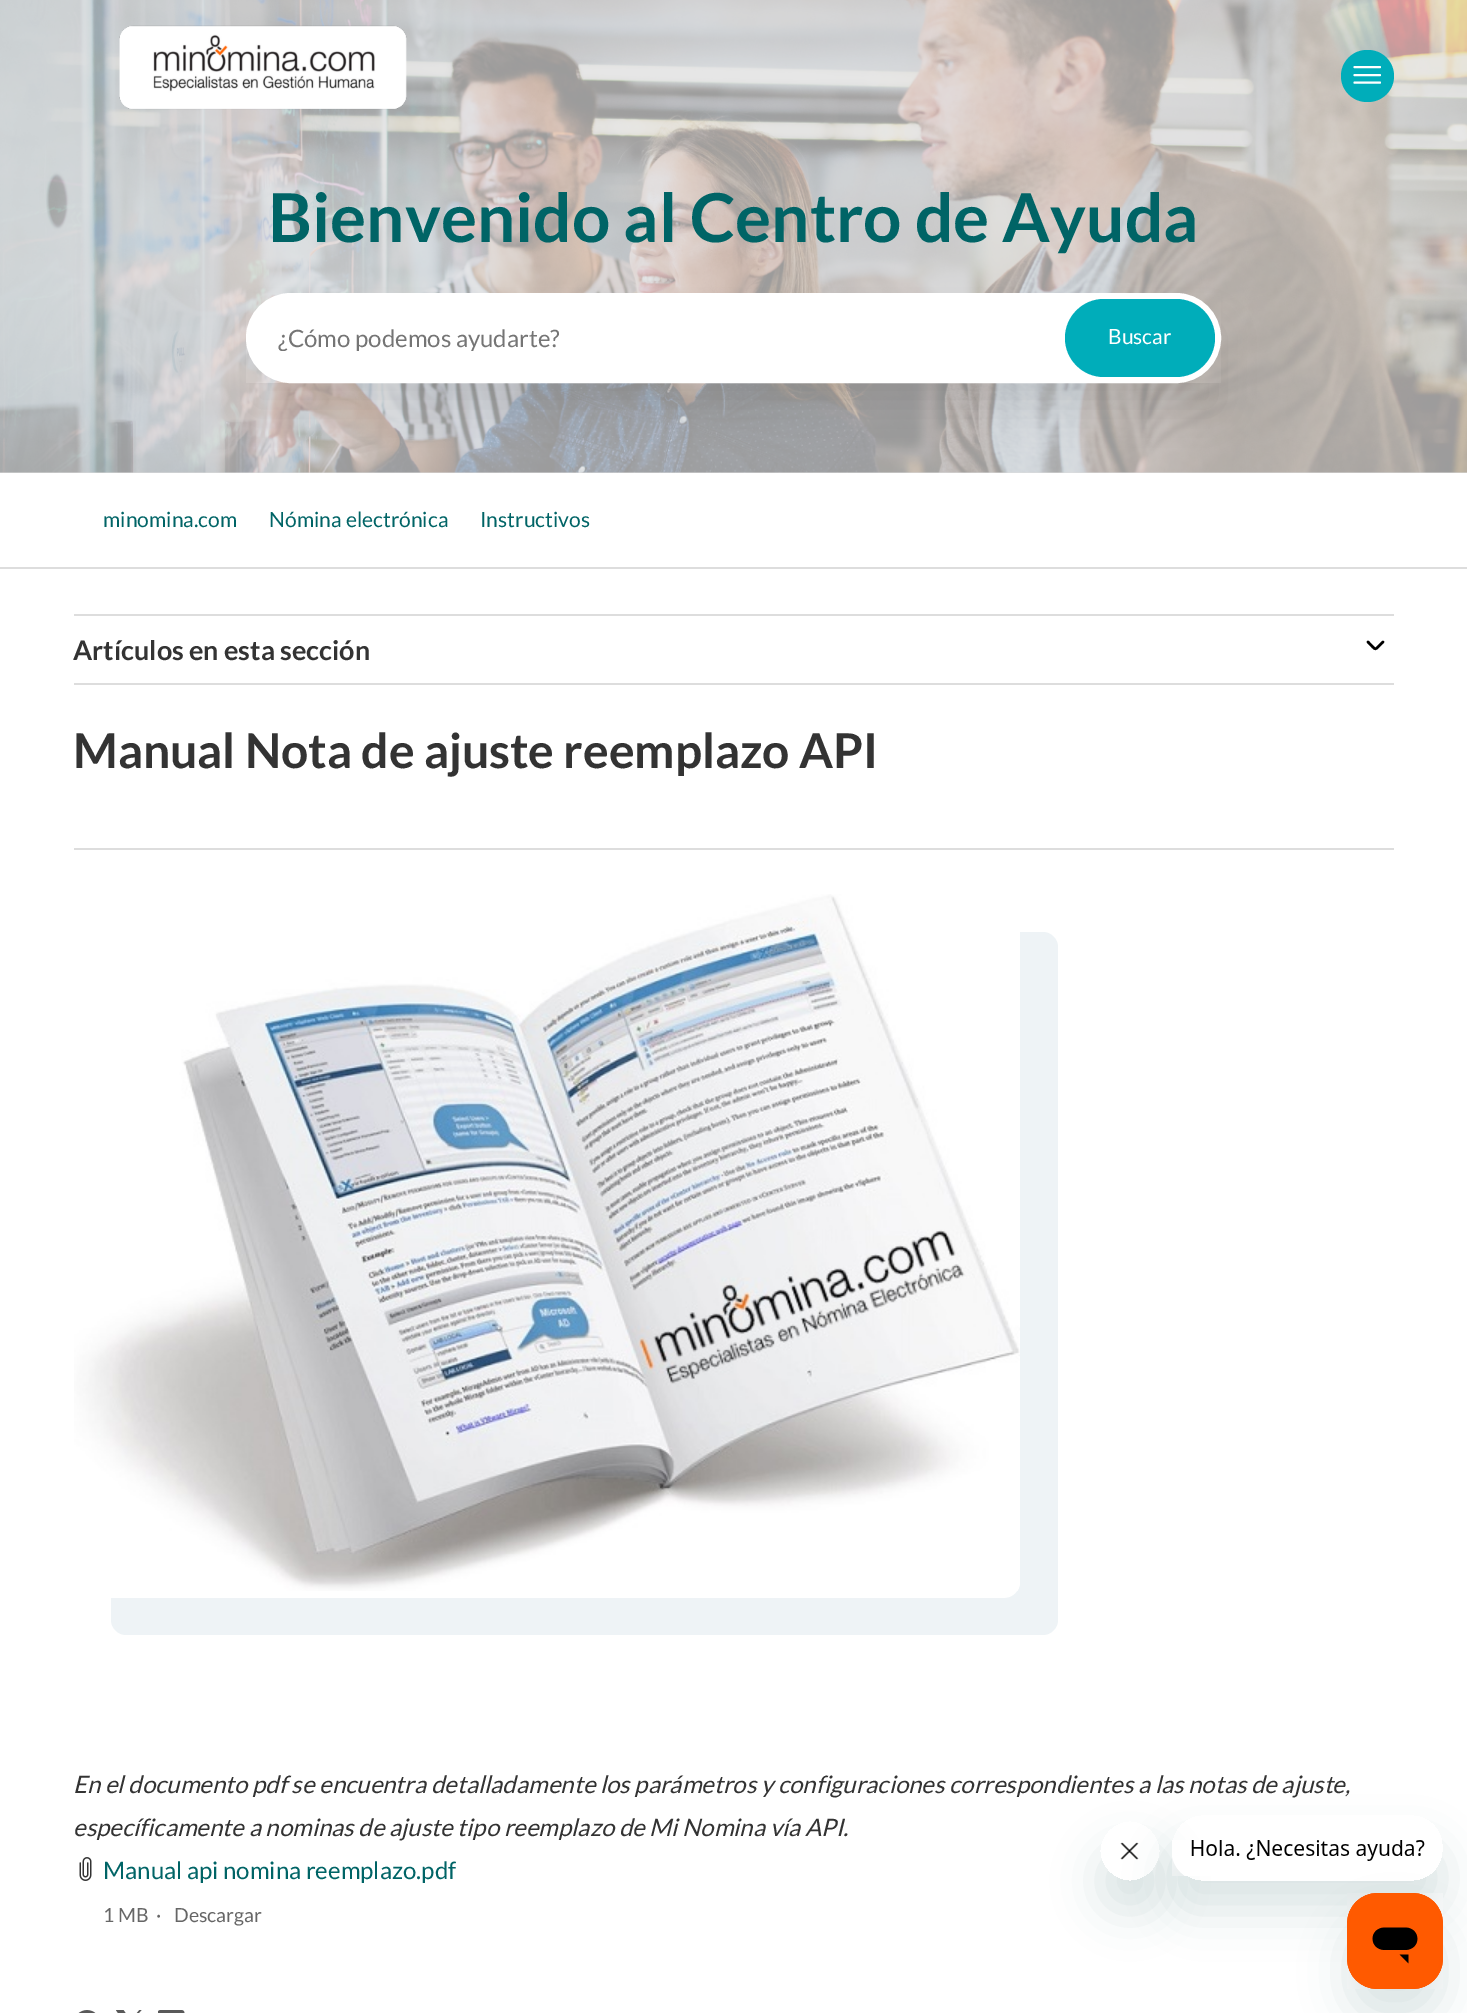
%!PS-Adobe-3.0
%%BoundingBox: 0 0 1467 2013
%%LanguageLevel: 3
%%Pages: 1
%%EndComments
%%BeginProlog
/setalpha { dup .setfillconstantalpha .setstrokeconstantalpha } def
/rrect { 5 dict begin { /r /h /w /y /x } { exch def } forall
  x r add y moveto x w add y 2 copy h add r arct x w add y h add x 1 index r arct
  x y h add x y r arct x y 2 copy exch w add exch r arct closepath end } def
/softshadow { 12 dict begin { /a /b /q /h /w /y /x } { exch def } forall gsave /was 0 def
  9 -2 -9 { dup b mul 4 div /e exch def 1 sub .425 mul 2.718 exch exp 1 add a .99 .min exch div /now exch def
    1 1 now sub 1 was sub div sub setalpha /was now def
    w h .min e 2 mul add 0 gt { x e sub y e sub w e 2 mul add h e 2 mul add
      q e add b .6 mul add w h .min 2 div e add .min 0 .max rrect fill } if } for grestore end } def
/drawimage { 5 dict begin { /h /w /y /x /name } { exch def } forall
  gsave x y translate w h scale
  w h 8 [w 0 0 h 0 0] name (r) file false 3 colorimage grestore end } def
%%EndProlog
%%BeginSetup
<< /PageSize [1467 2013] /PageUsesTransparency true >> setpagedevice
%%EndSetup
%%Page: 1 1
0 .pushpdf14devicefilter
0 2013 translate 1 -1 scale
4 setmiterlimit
1 setgray
0 0 1467 2013 rectfill
0.867 setgray
0 472 1467 1 rectfill
(images/2.raw) 0 0 1467 473 drawimage
(images/1.raw) 119 25 288 85 drawimage
0 0.678 0.729 setrgbcolor
1341 50 53 52 26 rrect fill
1 setgray
2 setlinewidth
1 setlinecap
newpath 1354.5 67 moveto 1380 67 lineto 1354.5 75 moveto 1380 75 lineto 1354.5 82.5 moveto 1380 82.5 lineto stroke
gsave
newpath 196 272 moveto 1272 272 lineto 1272 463 lineto 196 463 lineto closepath 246 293 moveto 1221 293 lineto 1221 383 lineto 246 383 lineto closepath eoclip newpath
0 setgray
254 330 960 75 0 19 0.1 softshadow
grestore
247 294 973 88 44 rrect gsave fill grestore
0 setlinecap
stroke
0 0.678 0.729 setrgbcolor
1065 299 150 78 39 rrect fill
0.867 setgray
0 567 1467 2 rectfill
74 614 1320 2 rectfill
74 683 1320 2 rectfill
0 setgray
2.5 setlinewidth
1 setlinecap
newpath 1368 642 moveto 1377 651 1373.5 651 1383 642 curveto stroke
0.867 setgray
74 848 1320 2 rectfill
0.933 0.953 0.965 setrgbcolor
newpath 111 1598 moveto 111 1620 lineto 111 1628 118 1635 126 1635 curveto 1043 1635 lineto 1051 1635 1058 1628 1058 1620 curveto 1058 947 lineto 1058 939 1051 932 1043 932 curveto 1020 932 lineto 1020 1582 lineto 1020 1591 1013 1598 1005 1598 curveto closepath fill
(images/3.raw) 74 894 946 697 drawimage
(images/4.raw) 79 1857 13 24 drawimage
(images/5.raw) 78 2010 18 3 drawimage
(images/6.raw) 116 2010 26 3 drawimage
(images/7.raw) 158 2010 27 3 drawimage
gsave
newpath 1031 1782 moveto 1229 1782 lineto 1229 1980 lineto 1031 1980 lineto closepath 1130 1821 moveto 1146.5 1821 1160 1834.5 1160 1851 curveto 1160 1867.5 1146.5 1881 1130 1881 curveto 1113.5 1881 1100 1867.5 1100 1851 curveto 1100 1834.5 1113.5 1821 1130 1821 curveto closepath eoclip newpath
0.09 0.286 0.302 setrgbcolor
1100 1851 60 60 30 22.5 0.15 softshadow
grestore
(images/9.raw) 1120 1842 19 18 drawimage
gsave
newpath 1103 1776 moveto 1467 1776 lineto 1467 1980 lineto 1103 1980 lineto closepath 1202 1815 moveto 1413 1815 lineto 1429.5 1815 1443 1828.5 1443 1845 curveto 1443 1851 lineto 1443 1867.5 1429.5 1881 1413 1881 curveto 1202 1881 lineto 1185.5 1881 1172 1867.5 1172 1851 curveto 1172 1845 lineto 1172 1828.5 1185.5 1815 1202 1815 curveto closepath eoclip newpath
0.09 0.286 0.302 setrgbcolor
1172 1845 271 66 30 22.5 0.15 softshadow
grestore
(images/8.raw) 1172 1840 253 36 drawimage
0.09 0.286 0.302 setrgbcolor
1347 1923 96 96 30 22.5 0.15 softshadow
(images/10.raw) 1347 1893 96 96 drawimage
/Lato-Bold [67.5 0 0 -67.5 0 0] selectfont
0 0.392 0.4 setrgbcolor
268 242 moveto (Bienvenido al Centro de Ayuda) show
gsave
278 323 754 28 rectclip
/Lato-Regular [24 0 0 -24 0 0] selectfont
0.459 setgray
278 347 moveto (¿Cómo podemos ayudarte?) show
grestore
/Lato-Regular [21 0 0 -21 0 0] selectfont
1 setgray
1108 344 moveto (Buscar) show
0 0.392 0.4 setrgbcolor
103 527 moveto (minomina.com) show
269 527 moveto (Nómina electrónica) show
480 527 moveto (Instructivos) show
/Lato-Bold [27 0 0 -27 0 0] selectfont
0.2 setgray
73 660 moveto (Artículos en esta sección) show
/Lato-Bold [48 0 0 -48 0 0] selectfont
73 768 moveto (Manual Nota de ajuste reemplazo API) show
/Lato-Italic [24 0 0 -24 0 0] selectfont
73 1793 moveto (En el documento pdf se encuentra detalladamente los parámetros y configuraciones correspondientes a las notas de ajuste,) show
73 1836 moveto (específicamente a nominas de ajuste tipo reemplazo de Mi Nomina vía API.) show
/Lato-Regular [24 0 0 -24 0 0] selectfont
0 0.392 0.4 setrgbcolor
103 1879 moveto (Manual api nomina reemplazo.pdf) show
/Lato-Regular [19.5 0 0 -19.5 0 0] selectfont
0.4 setgray
103 1922 moveto (1 MB) show
156 1922 moveto (·) show
174 1922 moveto (Descargar) show
.poppdf14devicefilter showpage
%%EOF
